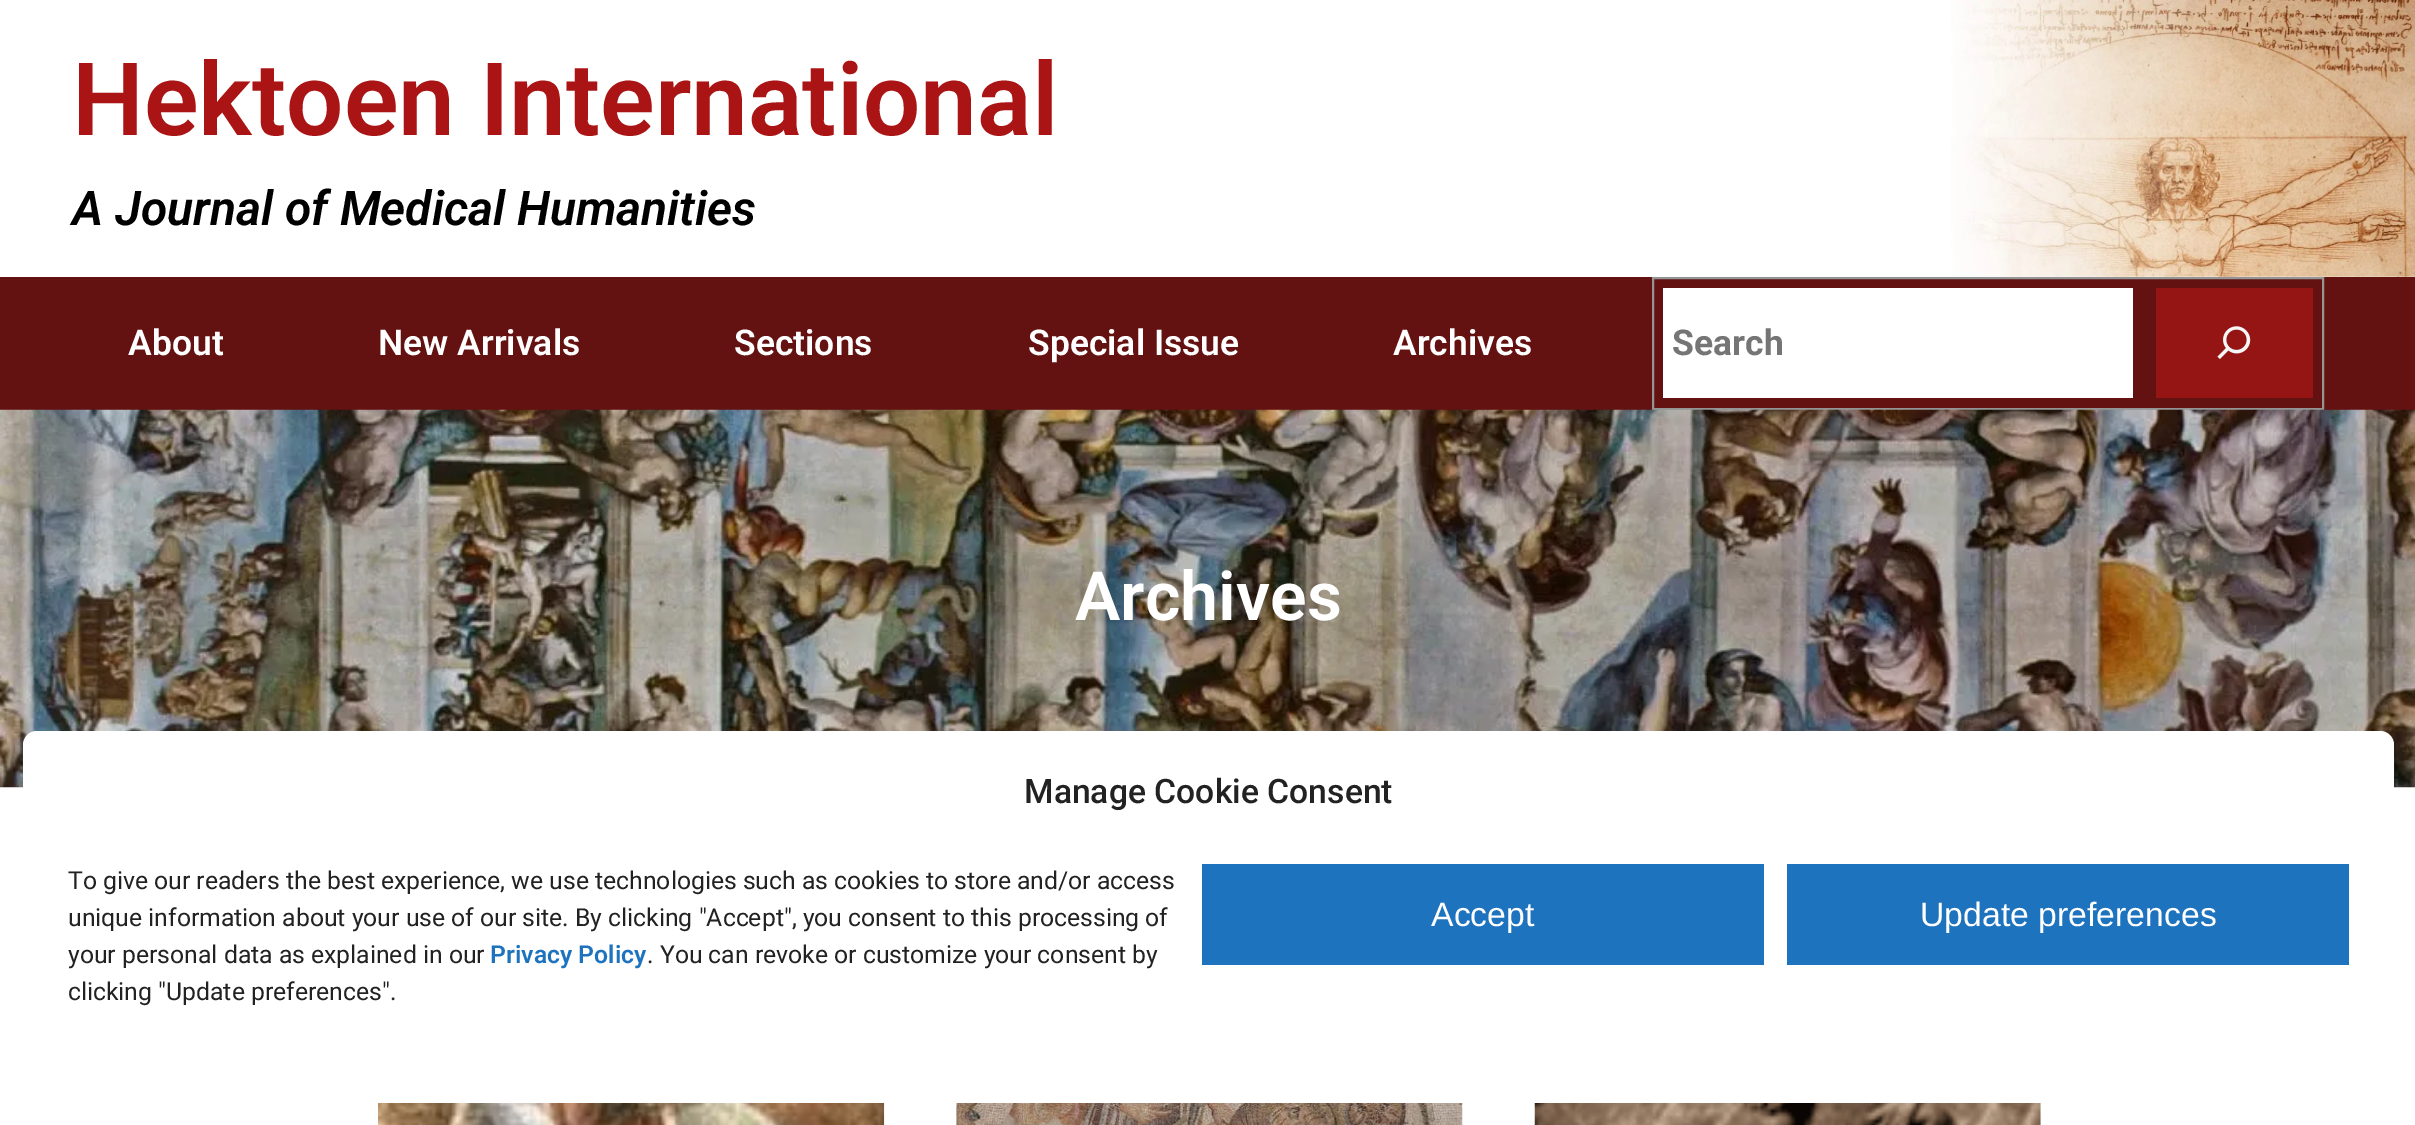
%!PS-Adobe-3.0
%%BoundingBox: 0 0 2415 1125
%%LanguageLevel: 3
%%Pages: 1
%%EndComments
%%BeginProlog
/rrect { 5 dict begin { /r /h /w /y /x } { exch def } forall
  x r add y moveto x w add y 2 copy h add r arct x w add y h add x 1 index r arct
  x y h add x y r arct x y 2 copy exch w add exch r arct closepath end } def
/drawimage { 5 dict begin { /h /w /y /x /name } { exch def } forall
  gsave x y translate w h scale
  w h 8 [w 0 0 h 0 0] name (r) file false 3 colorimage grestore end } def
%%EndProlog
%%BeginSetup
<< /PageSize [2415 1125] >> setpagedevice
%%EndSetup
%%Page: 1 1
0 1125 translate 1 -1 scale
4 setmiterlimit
1 setgray
0 0 2415 1125 rectfill
(images/1.raw) 1951 0 464 277 drawimage
0.392 0.067 0.067 setrgbcolor
0 277 2415 133 rectfill
0.58 setgray
2 setlinewidth
1653 278 670 131 rectstroke
1 setgray
1663 288 470 110 rectfill
0.584 0.082 0.082 setrgbcolor
2156 288 157 110 rectfill
(images/2.raw) 2217 326 34 33 drawimage
(images/3.raw) 0 409 2415 379 drawimage
(images/4.raw) 378 1103 507 22 drawimage
(images/5.raw) 956 1103 507 22 drawimage
(images/6.raw) 1534 1103 507 22 drawimage
1 setgray
23 731 2371 372 14 rrect fill
0.118 0.451 0.745 setrgbcolor
1202 864 562 101 rectfill
1787 864 562 101 rectfill
/Roboto-SemiBold [101.5 0 0 -101.5 0 0] selectfont
0.667 0.078 0.078 setrgbcolor
72 135 moveto (Hektoen International) show
/Roboto-SemiBoldItalic [48 0 0 -48 0 0] selectfont
0 setgray
72 225 moveto (A Journal of Medical Humanities) show
/Roboto-SemiBold [35.5 0 0 -35.5 0 0] selectfont
1 setgray
128 355 moveto (About) show
378 355 moveto (New Arrivals) show
734 355 moveto (Sections) show
1028 355 moveto (Special Issue) show
1393 355 moveto (Archives) show
/Roboto-Bold [35.5 0 0 -35.5 0 0] selectfont
0.459 setgray
1672 355 moveto (Search) show
/Roboto-SemiBold [68 0 0 -68 0 0] selectfont
1 setgray
1075 620 moveto (Archives) show
/Roboto-Medium [33.75 0 0 -33.75 0 0] selectfont
0.133 setgray
1024 803 moveto (Manage Cookie Consent) show
/Roboto-Regular [24.75 0 0 -24.75 0 0] selectfont
68 889 moveto (To give our readers the best experience, we use technologies such as cookies to store and/or access) show
68 926 moveto (unique information about your use of our site. By clicking "Accept", you consent to this processing of) show
68 963 moveto (your personal data as explained in our) show
/Roboto-SemiBold [24.75 0 0 -24.75 0 0] selectfont
0.118 0.451 0.745 setrgbcolor
490 963 moveto (Privacy Policy) show
/Roboto-Regular [24.75 0 0 -24.75 0 0] selectfont
0.133 setgray
647 963 moveto (. You can revoke or customize your consent by) show
68 1000 moveto (clicking "Update preferences".) show
/LiberationSans-Regular [33.75 0 0 -33.75 0 0] selectfont
1 setgray
1431 926 moveto (Accept) show
1920 926 moveto (Update preferences) show
showpage
%%EOF
